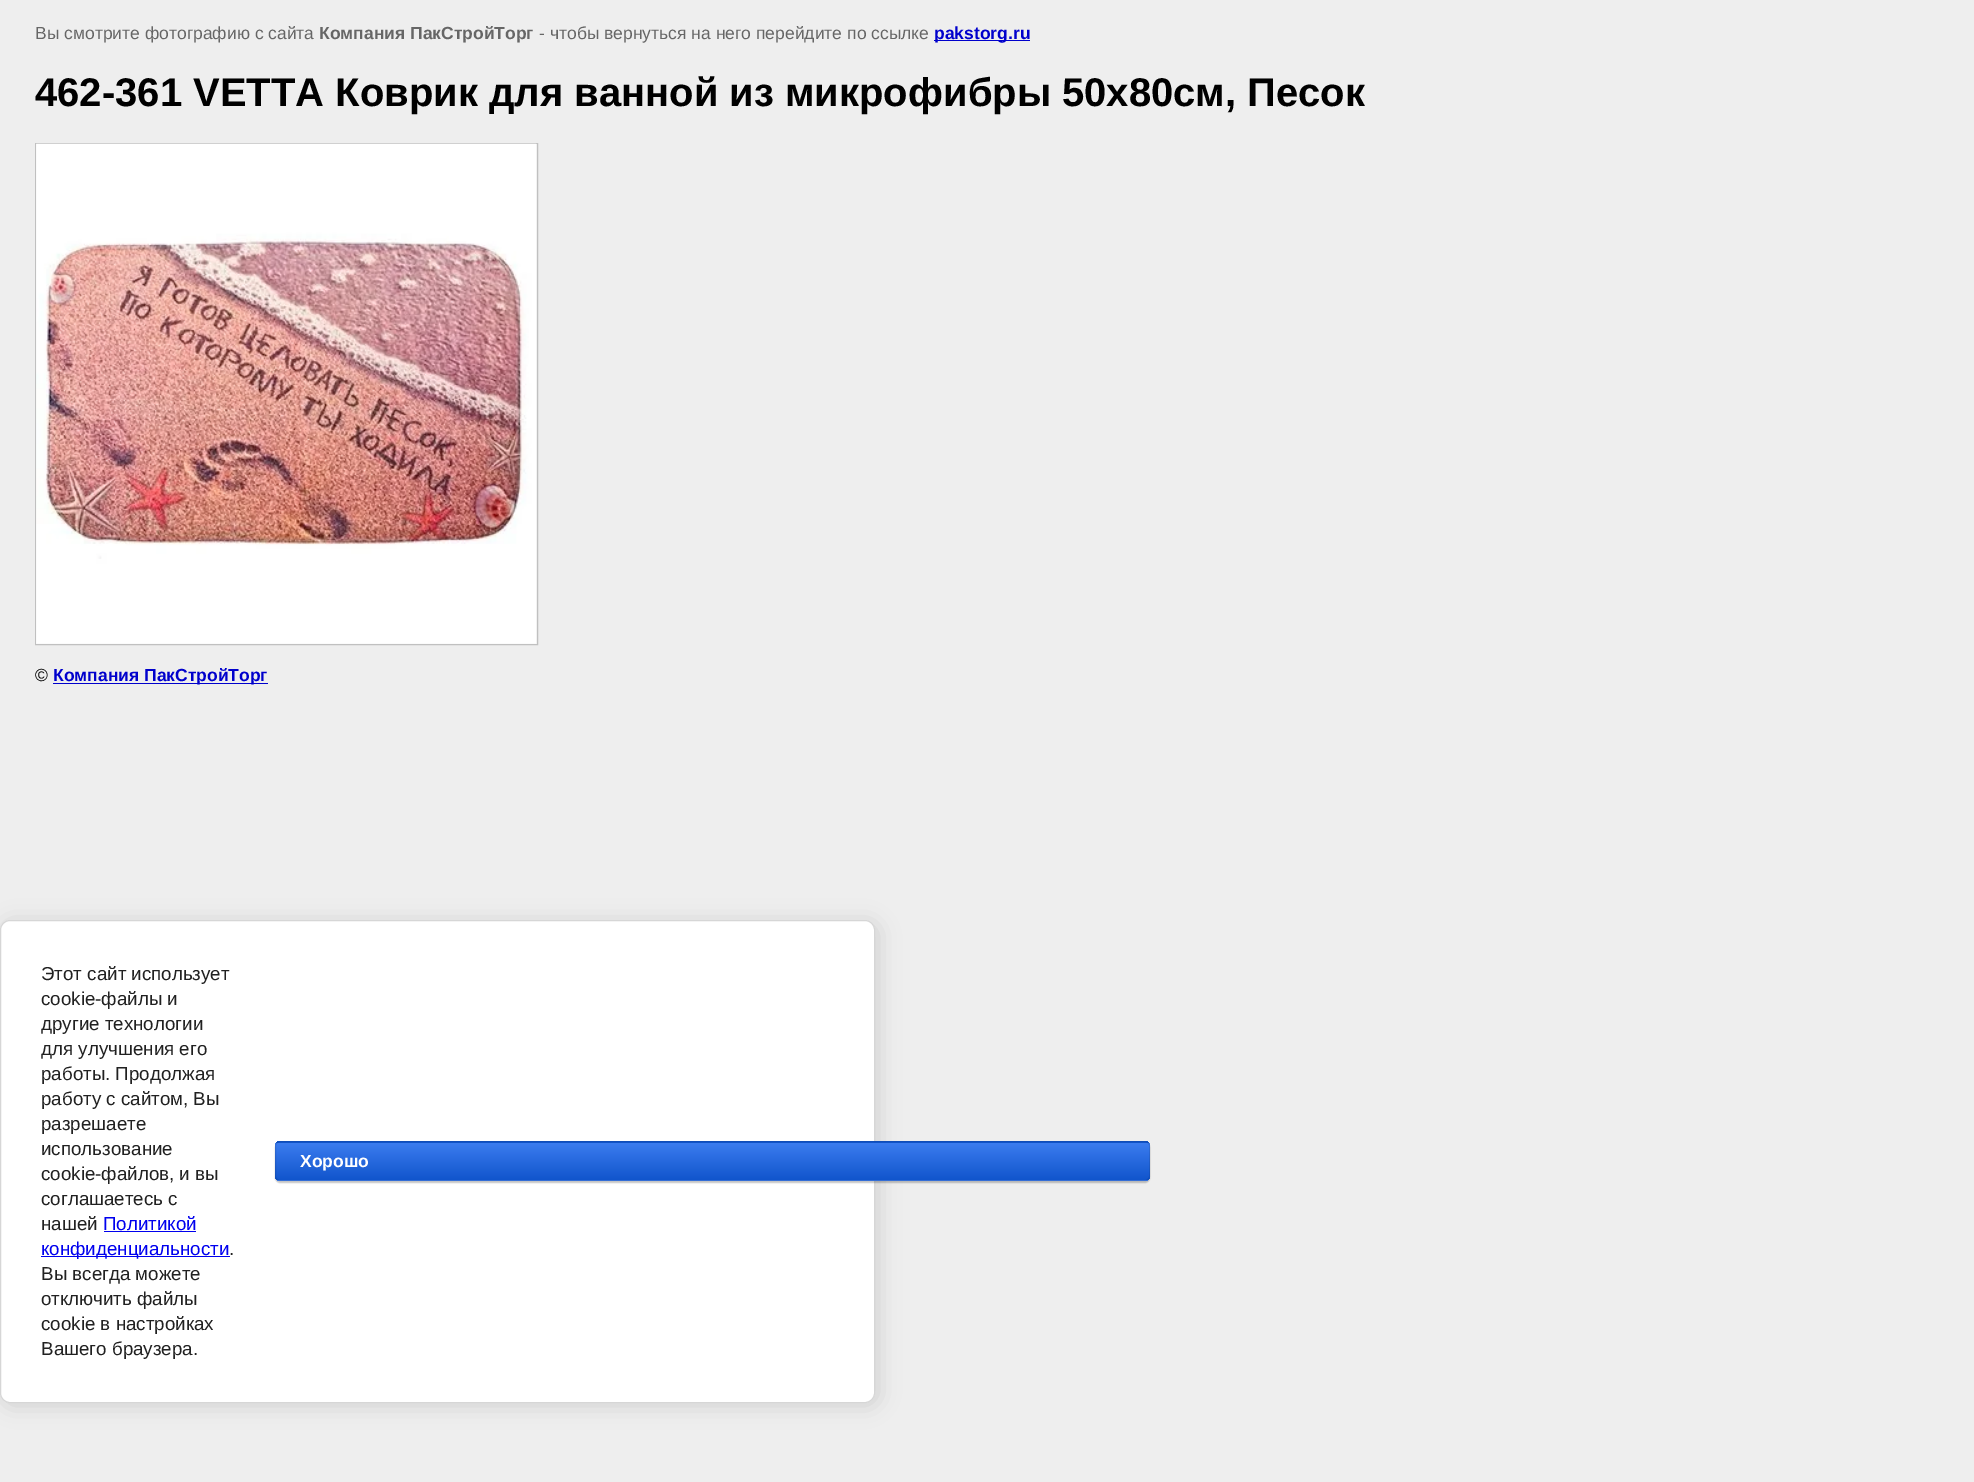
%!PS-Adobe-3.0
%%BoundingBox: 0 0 1974 1482
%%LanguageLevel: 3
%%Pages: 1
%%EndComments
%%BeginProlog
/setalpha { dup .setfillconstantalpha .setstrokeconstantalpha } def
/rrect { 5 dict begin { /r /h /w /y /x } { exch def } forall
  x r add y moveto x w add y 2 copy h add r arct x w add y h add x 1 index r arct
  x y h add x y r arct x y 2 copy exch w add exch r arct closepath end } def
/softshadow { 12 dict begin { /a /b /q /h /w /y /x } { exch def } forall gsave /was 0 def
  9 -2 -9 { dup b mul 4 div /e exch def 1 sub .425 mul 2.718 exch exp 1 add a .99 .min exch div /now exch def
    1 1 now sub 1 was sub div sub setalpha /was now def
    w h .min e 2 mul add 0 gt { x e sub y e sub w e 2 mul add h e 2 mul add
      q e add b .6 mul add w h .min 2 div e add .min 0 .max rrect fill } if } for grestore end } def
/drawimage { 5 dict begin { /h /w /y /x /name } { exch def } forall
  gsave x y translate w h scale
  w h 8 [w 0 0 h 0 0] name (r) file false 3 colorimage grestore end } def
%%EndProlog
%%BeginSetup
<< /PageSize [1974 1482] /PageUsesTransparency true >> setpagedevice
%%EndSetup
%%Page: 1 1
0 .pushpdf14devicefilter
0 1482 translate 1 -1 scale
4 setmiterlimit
0.933 setgray
0 0 1974 1482 rectfill
0 0 0.8 setrgbcolor
934 40 96 1 rectfill
0.753 setgray
35.5 143.5 502 501 rectstroke
(images/1.raw) 36 143 501 501 drawimage
0 0 0.8 setrgbcolor
53 683 215 1 rectfill
0 setgray
3 923 875 482 10 11 0.14 softshadow
1 setgray
0.5 920.5 874 482 9.5 rrect gsave fill grestore
0.839 setgray
stroke
0 0 0.933 setrgbcolor
104 1231 92 1 rectfill
41 1256 189 1 rectfill
0 setgray
275 1143 875 40 5 0.5 0.2 softshadow
gsave
275 1141 875 40 5 rrect clip newpath
gsave newpath 275 1141 moveto 1150 1141 lineto 1150 1143 lineto 275 1143 lineto closepath clip newpath
<< /ShadingType 2 /ColorSpace /DeviceRGB /Coords [713 1105 713 1143] /Extend [true true] /Function << /FunctionType 2 /Domain [0 1] /C0 [0.231 0.486 0.937] /C1 [0.067 0.333 0.8] /N 1 >> >> shfill grestore
gsave newpath 275 1143 moveto 1150 1143 lineto 1150 1180 lineto 275 1180 lineto closepath clip newpath
<< /ShadingType 2 /ColorSpace /DeviceRGB /Coords [713 1143 713 1180] /Extend [true true] /Function << /FunctionType 2 /Domain [0 1] /C0 [0.231 0.486 0.937] /C1 [0.067 0.333 0.8] /N 1 >> >> shfill grestore
gsave newpath 275 1180 moveto 1150 1180 lineto 1150 1181 lineto 275 1181 lineto closepath clip newpath
<< /ShadingType 2 /ColorSpace /DeviceRGB /Coords [713 1180 713 1218] /Extend [true true] /Function << /FunctionType 2 /Domain [0 1] /C0 [0.231 0.486 0.937] /C1 [0.067 0.333 0.8] /N 1 >> >> shfill grestore
grestore
0.1 setalpha
275.5 1141.5 874 39 4.5 rrect stroke
/LiberationSans-Regular [17.5 0 0 -17.5 0 0] selectfont
1 setalpha
0.4 setgray
35 39 moveto (Вы смотрите фотографию с сайта) show
/LiberationSans-Bold [17.5 0 0 -17.5 0 0] selectfont
319 39 moveto (Компания ПакСтройТорг) show
/LiberationSans-Regular [17.5 0 0 -17.5 0 0] selectfont
539 39 moveto (- чтобы вернуться на него перейдите по ссылке) show
/LiberationSans-Bold [17.5 0 0 -17.5 0 0] selectfont
0 0 0.8 setrgbcolor
934 39 moveto (pakstorg.ru) show
/LiberationSans-Bold [40 0 0 -40 0 0] selectfont
0 setgray
35 106 moveto (462-361 VETTA Коврик для ванной из микрофибры 50х80см, Песок) show
/LiberationSans-Regular [17.5 0 0 -17.5 0 0] selectfont
35 681 moveto (©) show
/LiberationSans-Bold [17.5 0 0 -17.5 0 0] selectfont
0 0 0.8 setrgbcolor
53 681 moveto (Компания ПакСтройТорг) show
/LiberationSans-Regular [18.75 0 0 -18.75 0 0] selectfont
0.129 setgray
41 980 moveto (Этот сайт использует) show
41 1005 moveto (cookie-файлы и) show
41 1030 moveto (другие технологии) show
41 1055 moveto (для улучшения его) show
41 1080 moveto (работы. Продолжая) show
41 1105 moveto (работу с сайтом, Вы) show
41 1130 moveto (разрешаете) show
41 1155 moveto (использование) show
41 1180 moveto (cookie-файлов, и вы) show
41 1205 moveto (соглашаетесь с) show
41 1230 moveto (нашей) show
0 0 0.933 setrgbcolor
103 1230 moveto (Политикой) show
41 1255 moveto (конфиденциальности) show
0.129 setgray
229 1255 moveto (.) show
41 1280 moveto (Вы всегда можете) show
41 1305 moveto (отключить файлы) show
41 1330 moveto (cookie в настройках) show
41 1355 moveto (Вашего браузера.) show
/LiberationSans-Bold [17.5 0 0 -17.5 0 0] selectfont
1 setgray
300 1167 moveto (Хорошо) show
.poppdf14devicefilter showpage
%%EOF
